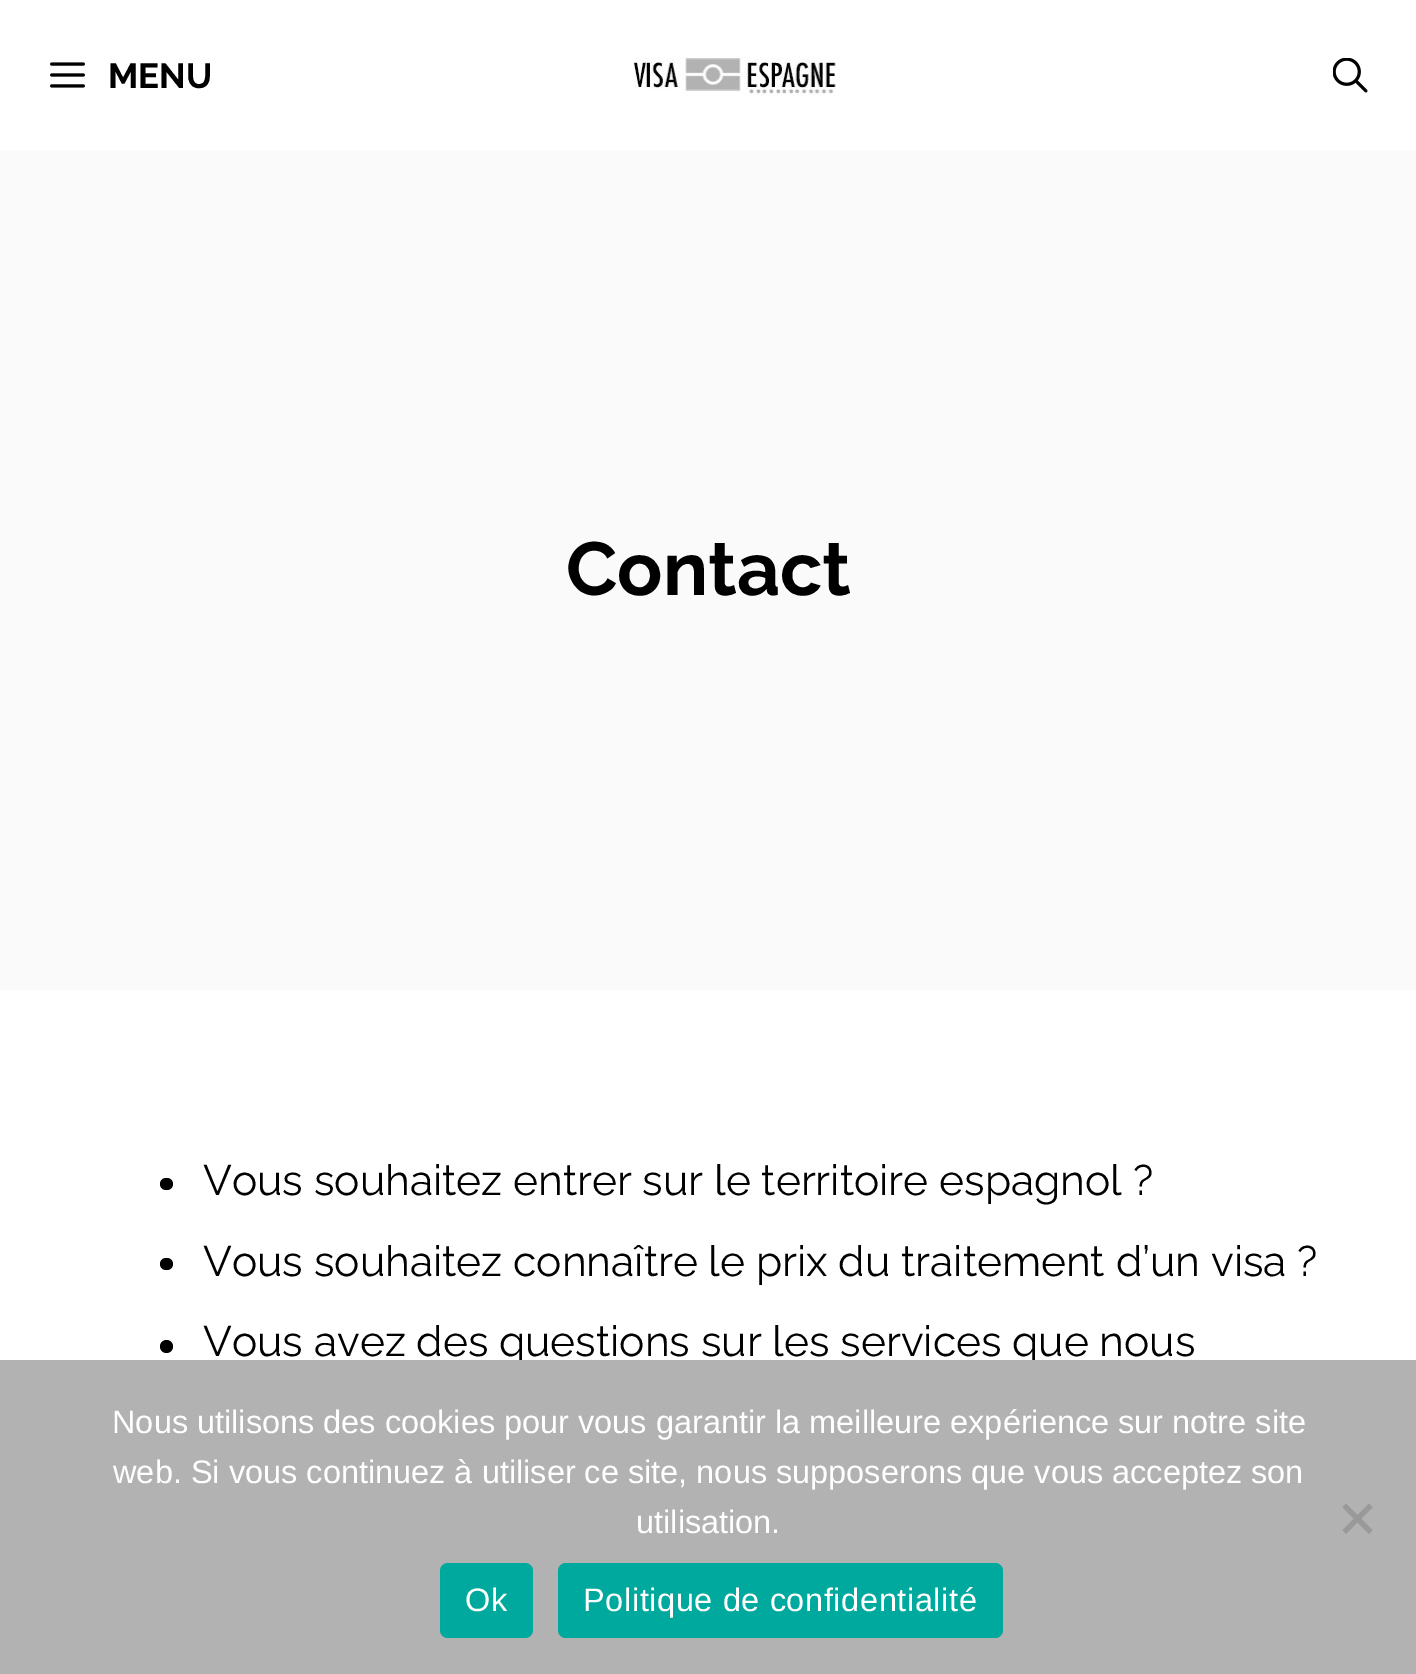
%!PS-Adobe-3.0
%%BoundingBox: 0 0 1416 1674
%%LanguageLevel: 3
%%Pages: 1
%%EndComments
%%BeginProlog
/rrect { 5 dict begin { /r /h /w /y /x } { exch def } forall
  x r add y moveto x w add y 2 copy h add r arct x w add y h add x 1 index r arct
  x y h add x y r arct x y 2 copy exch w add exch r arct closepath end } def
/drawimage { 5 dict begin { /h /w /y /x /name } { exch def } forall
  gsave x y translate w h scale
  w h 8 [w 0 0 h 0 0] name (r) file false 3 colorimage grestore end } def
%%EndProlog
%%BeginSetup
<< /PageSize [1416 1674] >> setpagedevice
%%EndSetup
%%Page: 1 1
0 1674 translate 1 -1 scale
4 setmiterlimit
1 setgray
0 0 1416 1674 rectfill
(images/1.raw) 50 62 35 26 drawimage
(images/2.raw) 633 57 203 40 drawimage
(images/3.raw) 1333 58 35 35 drawimage
0.98 setgray
0 150 1416 840 rectfill
0 setgray
160 1178 13 12 6 rrect fill
160 1258 13 12 6 rrect fill
newpath 166.5 1346.5 6.5 0 360 arc closepath fill
/Raleway-Bold [35 0 0 -35 0 0] selectfont
108 88 moveto (MENU) show
/Raleway-Bold [75 0 0 -75 0 0] selectfont
566 595 moveto (Contact) show
/Raleway-Regular [42.5 0 0 -42.5 0 0] selectfont
203 1195 moveto (Vous souhaitez entrer sur le territoire espagnol ?) show
203 1276 moveto (Vous souhaitez connaître le prix du traitement d’un visa ?) show
203 1356 moveto (Vous avez des questions sur les services que nous) show
0.698 setgray
0 1360 1416 314 rectfill
/LiberationSans-Regular [32.5 0 0 -32.5 0 0] selectfont
1 setgray
112 1433 moveto (Nous utilisons des cookies pour vous garantir la meilleure expérience sur notre site) show
113 1483 moveto (web. Si vous continuez à utiliser ce site, nous supposerons que vous acceptez son) show
636 1533 moveto (utilisation.) show
0.6 setgray
newpath 1369 1503.5 moveto 1372.5 1507.5 lineto 1346 1534 lineto 1342.5 1530 lineto closepath fill
newpath 1342.5 1507.5 moveto 1346 1503.5 lineto 1372.5 1530 lineto 1369 1534 lineto closepath fill
0 0.663 0.616 setrgbcolor
440 1563 93 75 8 rrect fill
1 setgray
465 1611 moveto 0.6 0 (Ok) ashow
0 0.663 0.616 setrgbcolor
558 1563 445 75 8 rrect fill
1 setgray
583 1611 moveto 0.6 0 (Politique de confidentialité) ashow
showpage
%%EOF
